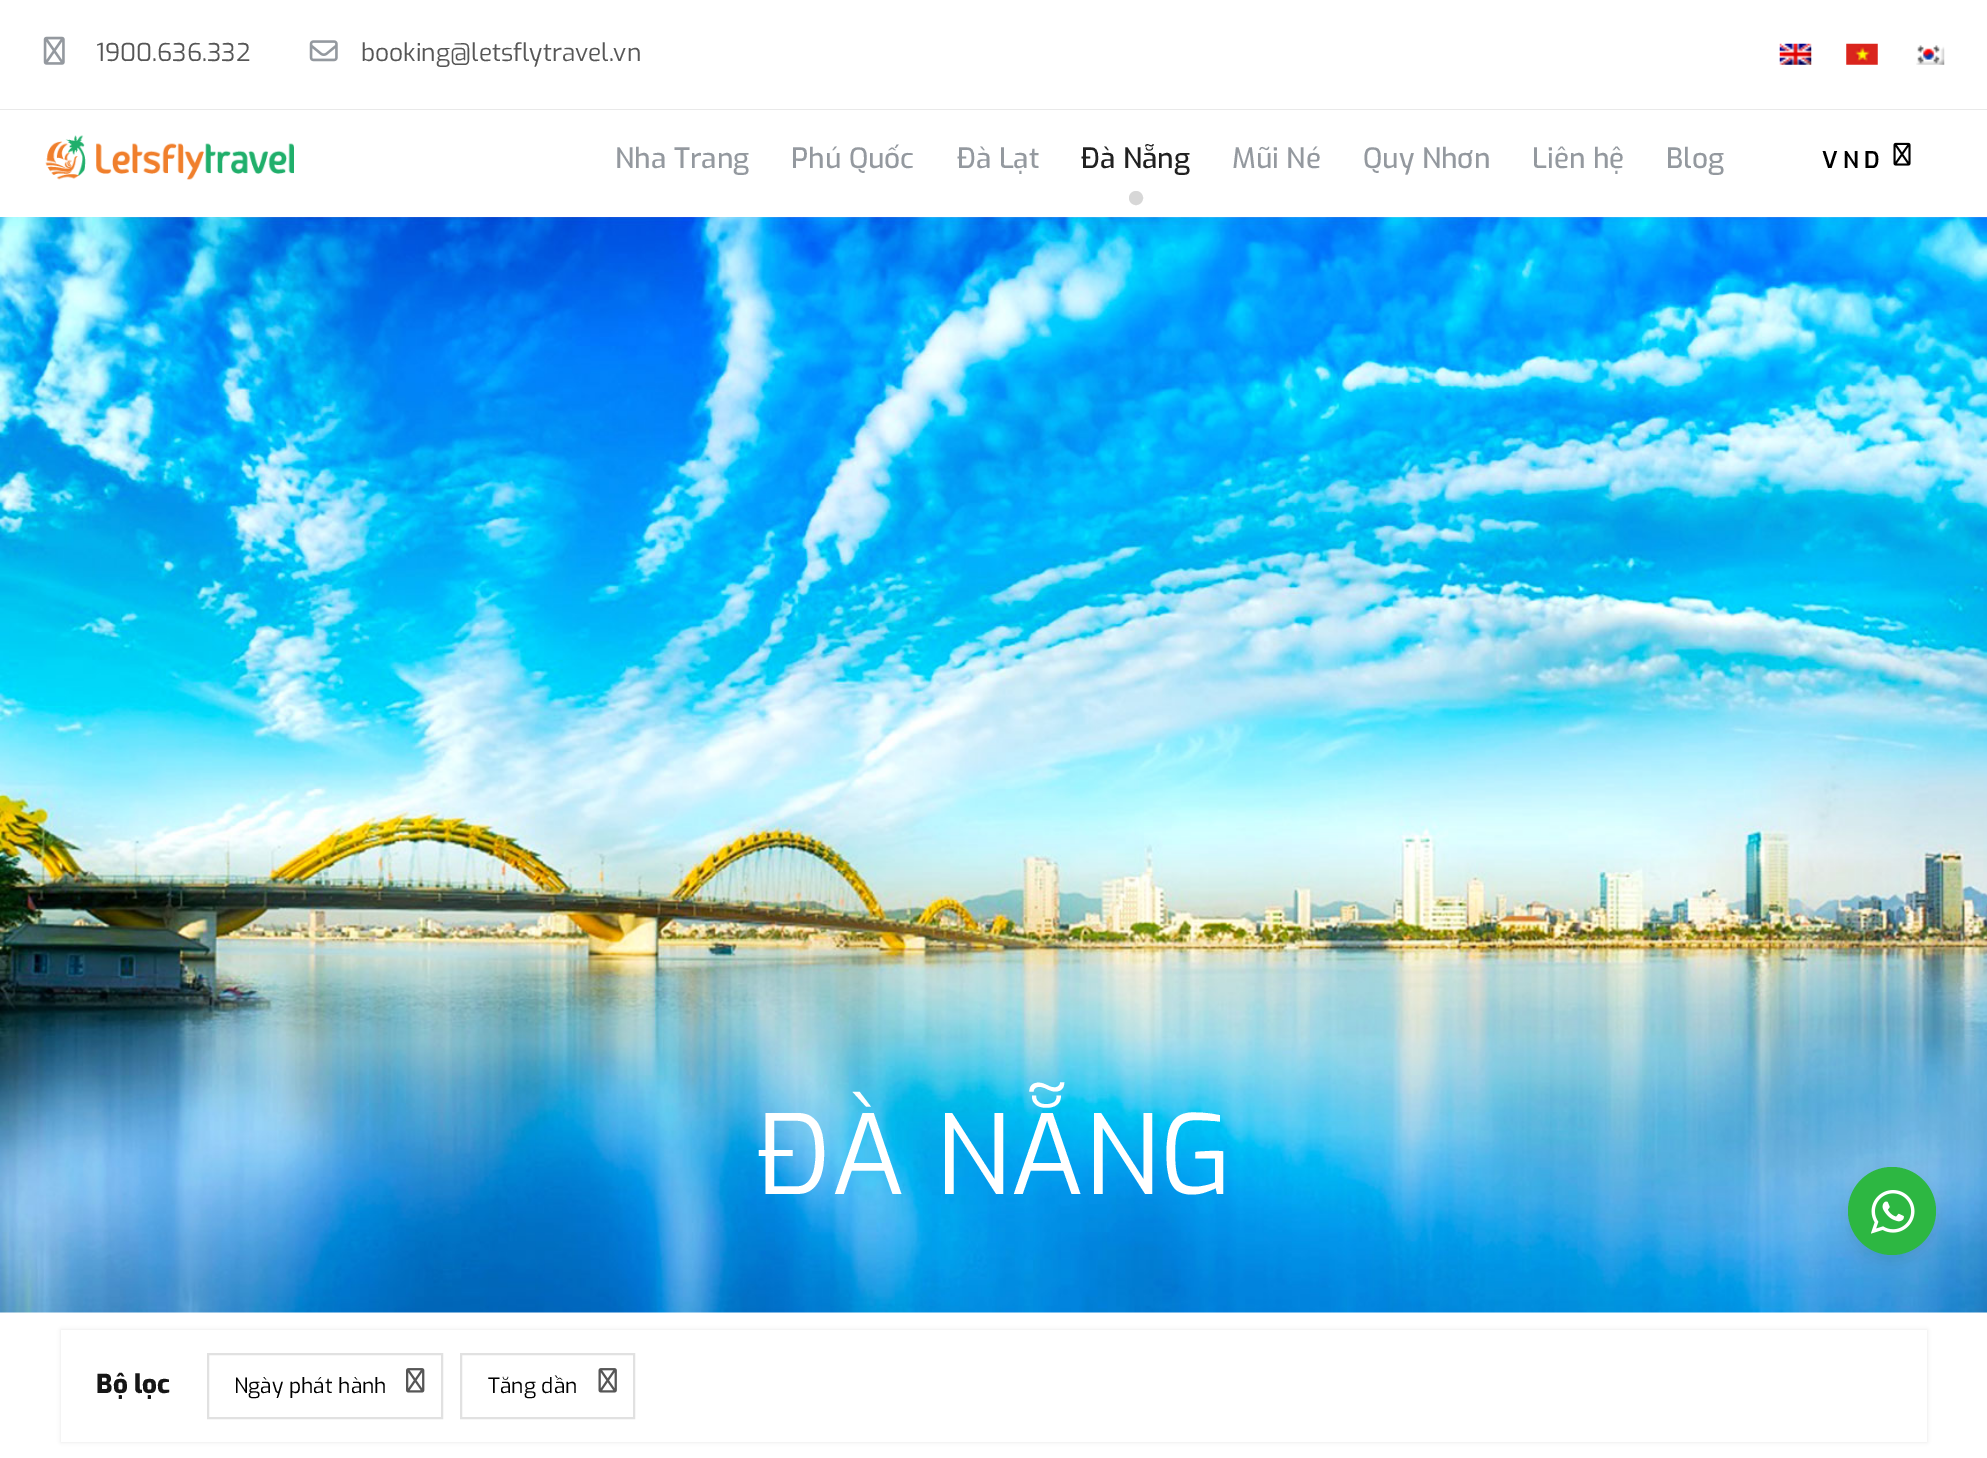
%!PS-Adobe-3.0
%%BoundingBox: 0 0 1987 1458
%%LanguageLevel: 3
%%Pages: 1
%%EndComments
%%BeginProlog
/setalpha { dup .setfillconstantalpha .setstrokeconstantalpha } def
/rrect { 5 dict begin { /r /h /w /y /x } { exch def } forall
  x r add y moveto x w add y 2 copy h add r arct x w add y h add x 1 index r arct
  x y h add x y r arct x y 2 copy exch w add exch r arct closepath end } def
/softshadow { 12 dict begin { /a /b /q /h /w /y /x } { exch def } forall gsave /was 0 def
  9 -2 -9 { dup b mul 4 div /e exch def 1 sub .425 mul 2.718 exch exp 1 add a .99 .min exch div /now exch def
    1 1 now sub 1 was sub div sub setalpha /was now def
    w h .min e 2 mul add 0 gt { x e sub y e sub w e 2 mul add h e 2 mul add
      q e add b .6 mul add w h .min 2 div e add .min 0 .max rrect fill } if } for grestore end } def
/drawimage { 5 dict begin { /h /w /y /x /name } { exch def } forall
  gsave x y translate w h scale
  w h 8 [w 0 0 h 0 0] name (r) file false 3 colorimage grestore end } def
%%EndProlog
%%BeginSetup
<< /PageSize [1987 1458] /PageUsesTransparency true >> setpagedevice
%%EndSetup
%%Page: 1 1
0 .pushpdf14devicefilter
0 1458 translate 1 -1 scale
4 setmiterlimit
1 setgray
0 0 1987 1458 rectfill
0.914 setgray
0 109 1987 1 rectfill
(images/1.raw) 43 36 22 29 drawimage
(images/2.raw) 309 40 29 22 drawimage
(images/3.raw) 1779 43 33 22 drawimage
(images/4.raw) 1846 43 32 22 drawimage
(images/5.raw) 1916 45 29 20 drawimage
(images/6.raw) 45 135 249 45 drawimage
0.843 setgray
5 setlinewidth
newpath 1136 198 4.5 0 360 arc closepath stroke
1132 196 7 4 rectfill
(images/7.raw) 1893 142 18 24 drawimage
(images/8.raw) 0 217 1987 1096 drawimage
0 setgray
61 1330 1866 112 0 2 0.1 softshadow
1 setgray
61 1330 1866 112 rectfill
0.882 setgray
2 setlinewidth
208 1354 234 64 rectstroke
(images/9.raw) 406 1368 19 25 drawimage
461 1354 173 64 rectstroke
(images/10.raw) 598 1368 19 25 drawimage
0.125 0.125 0.145 setrgbcolor
1846 1173 91 91 45.5 7 0.09 softshadow
0.176 0.718 0.259 setrgbcolor
newpath 1892 1211 44 0 360 arc closepath fill
(images/11.raw) 1871 1190 44 44 drawimage
/Exo-Regular [24.5 0 0 -24.5 0 0] selectfont
0.337 setgray
96 61 moveto (1900.636.332) show
361 61 moveto (booking@letsflytravel.vn) show
/Exo-Medium [28 0 0 -28 0 0] selectfont
0.58 0.6 0.624 setrgbcolor
615 168 moveto (Nha Trang) show
791 168 moveto (Phú Quốc) show
957 168 moveto (Đà Lạt) show
0.129 setgray
1081 168 moveto (Đà Nẵng) show
0.58 0.6 0.624 setrgbcolor
1232 168 moveto (Mũi Né) show
1363 168 moveto (Quy Nhơn) show
1532 168 moveto (Liên hệ) show
1666 168 moveto (Blog) show
/Exo-SemiBold [23 0 0 -23 0 0] selectfont
0 setgray
1822 168 moveto 5 0 (VND) ashow
/Exo-Regular [110.25 0 0 -110.25 0 0] selectfont
1 setgray
757 1194 moveto (ĐÀ NẴNG) show
/Exo-ExtraBold [26 0 0 -26 0 0] selectfont
0.086 setgray
96 1393 moveto (Bộ lọc) show
/Exo-Regular [21 0 0 -21 0 0] selectfont
0 setgray
234 1393 moveto (Ngày phát hành) show
488 1393 moveto (Tăng dần) show
.poppdf14devicefilter showpage
%%EOF
